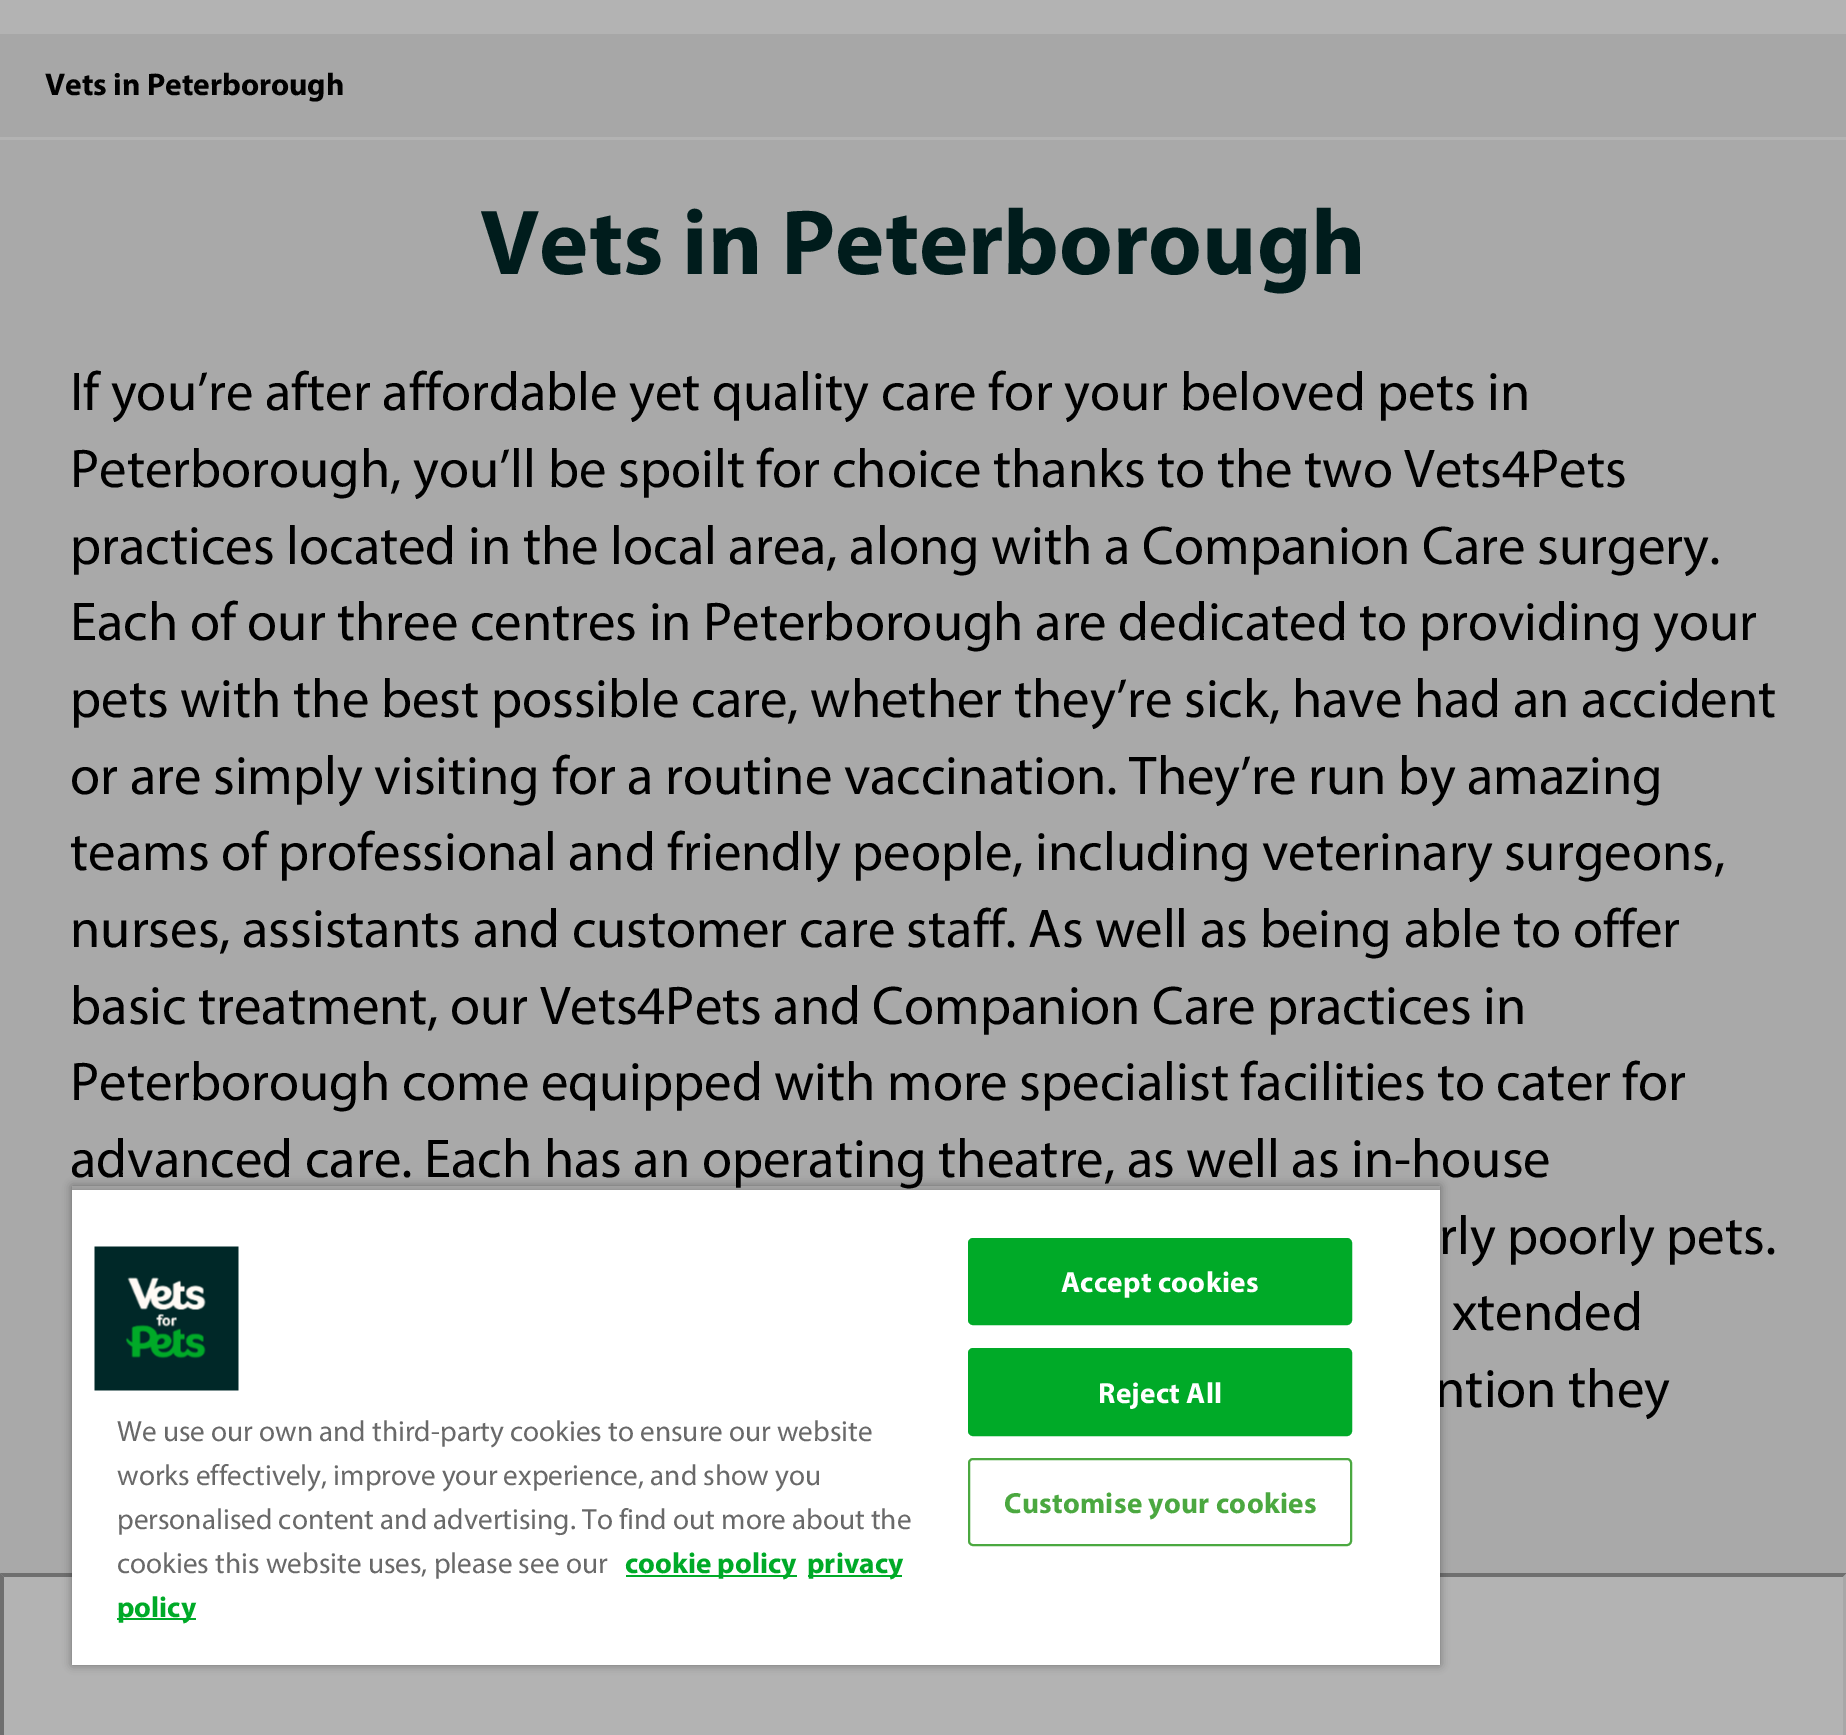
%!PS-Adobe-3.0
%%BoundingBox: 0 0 1846 1735
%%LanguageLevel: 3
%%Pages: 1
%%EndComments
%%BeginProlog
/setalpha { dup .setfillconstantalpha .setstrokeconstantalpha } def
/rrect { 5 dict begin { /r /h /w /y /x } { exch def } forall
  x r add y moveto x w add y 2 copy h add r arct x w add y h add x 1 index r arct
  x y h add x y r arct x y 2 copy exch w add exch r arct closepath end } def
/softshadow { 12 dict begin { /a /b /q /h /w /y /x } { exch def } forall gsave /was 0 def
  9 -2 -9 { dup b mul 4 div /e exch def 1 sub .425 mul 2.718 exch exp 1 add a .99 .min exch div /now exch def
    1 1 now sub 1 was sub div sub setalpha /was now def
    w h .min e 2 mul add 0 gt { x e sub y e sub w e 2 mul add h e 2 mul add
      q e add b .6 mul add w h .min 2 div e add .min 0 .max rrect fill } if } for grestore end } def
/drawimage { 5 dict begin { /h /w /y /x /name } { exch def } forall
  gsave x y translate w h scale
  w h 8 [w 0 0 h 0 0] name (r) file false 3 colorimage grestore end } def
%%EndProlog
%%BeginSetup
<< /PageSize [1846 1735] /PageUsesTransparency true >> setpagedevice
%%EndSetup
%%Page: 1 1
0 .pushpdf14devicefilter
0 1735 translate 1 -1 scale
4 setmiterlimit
0.702 setgray
0 0 1846 1735 rectfill
0.655 setgray
0 34 1846 103 rectfill
0.663 setgray
0 140 1846 1433 rectfill
0.435 setgray
newpath 0 1573 moveto 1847 1573 lineto 1843 1577 lineto 4 1577 lineto closepath fill
0.655 setgray
newpath 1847 1573 moveto 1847 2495 lineto 1843 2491 lineto 1843 1577 lineto closepath fill
0.435 setgray
newpath 0 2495 moveto 0 1573 lineto 4 1577 lineto 4 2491 lineto closepath fill
gsave
newpath 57 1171 moveto 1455 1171 lineto 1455 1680 lineto 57 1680 lineto closepath 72 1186 moveto 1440 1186 lineto 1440 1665 lineto 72 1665 lineto closepath eoclip newpath
0 setgray
72 1186 1368 479 0 4.5 0.35 softshadow
grestore
gsave
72 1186 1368 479 rectclip
0 setgray
72 1190 1368 475 0 4.5 0.2 softshadow
grestore
/Myriad-Bold [31.5 0 0 -31.5 0 0] selectfont
0 setgray
45 95 moveto (Vets in Peterborough) show
/Myriad-Bold [93.25 0 0 -93.25 0 0] selectfont
0 0.11 0.11 setrgbcolor
480 274 moveto (Vets in Peterborough) show
/Myriad-Regular [54.75 0 0 -54.75 0 0] selectfont
0 setgray
70 410 moveto (If you’re after affordable yet quality care for your beloved pets in) show
70 487 moveto -0.1 0 32 (Peterborough, you’ll be spoilt for choice thanks to the two Vets4Pets) widthshow
70 564 moveto -0.1 0 32 (practices located in the local area, along with a Companion Care surgery.) widthshow
70 640 moveto -0.1 0 32 (Each of our three centres in Peterborough are dedicated to providing your) widthshow
70 717 moveto (pets with the best possible care, whether they’re sick, have had an accident) show
70 794 moveto (or are simply visiting for a routine vaccination. They’re run by amazing) show
70 870 moveto -0.25 0 32 (teams of professional and friendly people, including veterinary surgeons,) widthshow
70 947 moveto -0.1 0 32 (nurses, assistants and customer care staff.) widthshow
1028 947 moveto (As well as being able to offer) show
70 1024 moveto -0.25 0 32 (basic treatment, our Vets4Pets and Companion Care practices in) widthshow
70 1100 moveto -0.25 0 32 (Peterborough come equipped with more specialist facilities to cater for) widthshow
70 1177 moveto -0.1 0 32 (advanced care. Each has an operating theatre, as well as in-house) widthshow
1439 1254 moveto -0.25 0 32 (rly poorly pets.) widthshow
1452 1330 moveto -0.1 0 32 (xtended) widthshow
1435 1407 moveto (ntion they) show
1 setgray
72 1190 1368 475 rectfill
(images/1.raw) 94 1246 145 145 drawimage
/Myriad-Regular [29.25 0 0 -29.25 0 0] selectfont
0.412 setgray
117 1441 moveto (We use our own and third-party cookies to ensure our website) show
117 1485 moveto (works effectively, improve your experience, and show you) show
117 1529 moveto (personalised content and advertising. To find out more about the) show
117 1573 moveto (cookies this website uses, please see our) show
0 0.667 0.157 setrgbcolor
626 1575 171 2 rectfill
/Myriad-Bold [29.25 0 0 -29.25 0 0] selectfont
625 1573 moveto (cookie policy) show
808 1575 94 2 rectfill
807 1573 moveto (privacy) show
117 1618 79 2 rectfill
117 1617 moveto (policy) show
969 1239 382 85 4 rrect gsave fill grestore
2 setlinewidth
stroke
1 setgray
1061 1292 moveto 0.25 0 (Accept cookies) ashow
0 0.667 0.157 setrgbcolor
969 1349 382 86 4 rrect gsave fill grestore
stroke
1 setgray
1098 1403 moveto 0.25 0 (Reject All) ashow
0.294 0.659 0.251 setrgbcolor
969 1459 382 86 4 rrect stroke
1004 1513 moveto 0.25 0 (Customise your cookies) ashow
.poppdf14devicefilter showpage
%%EOF
